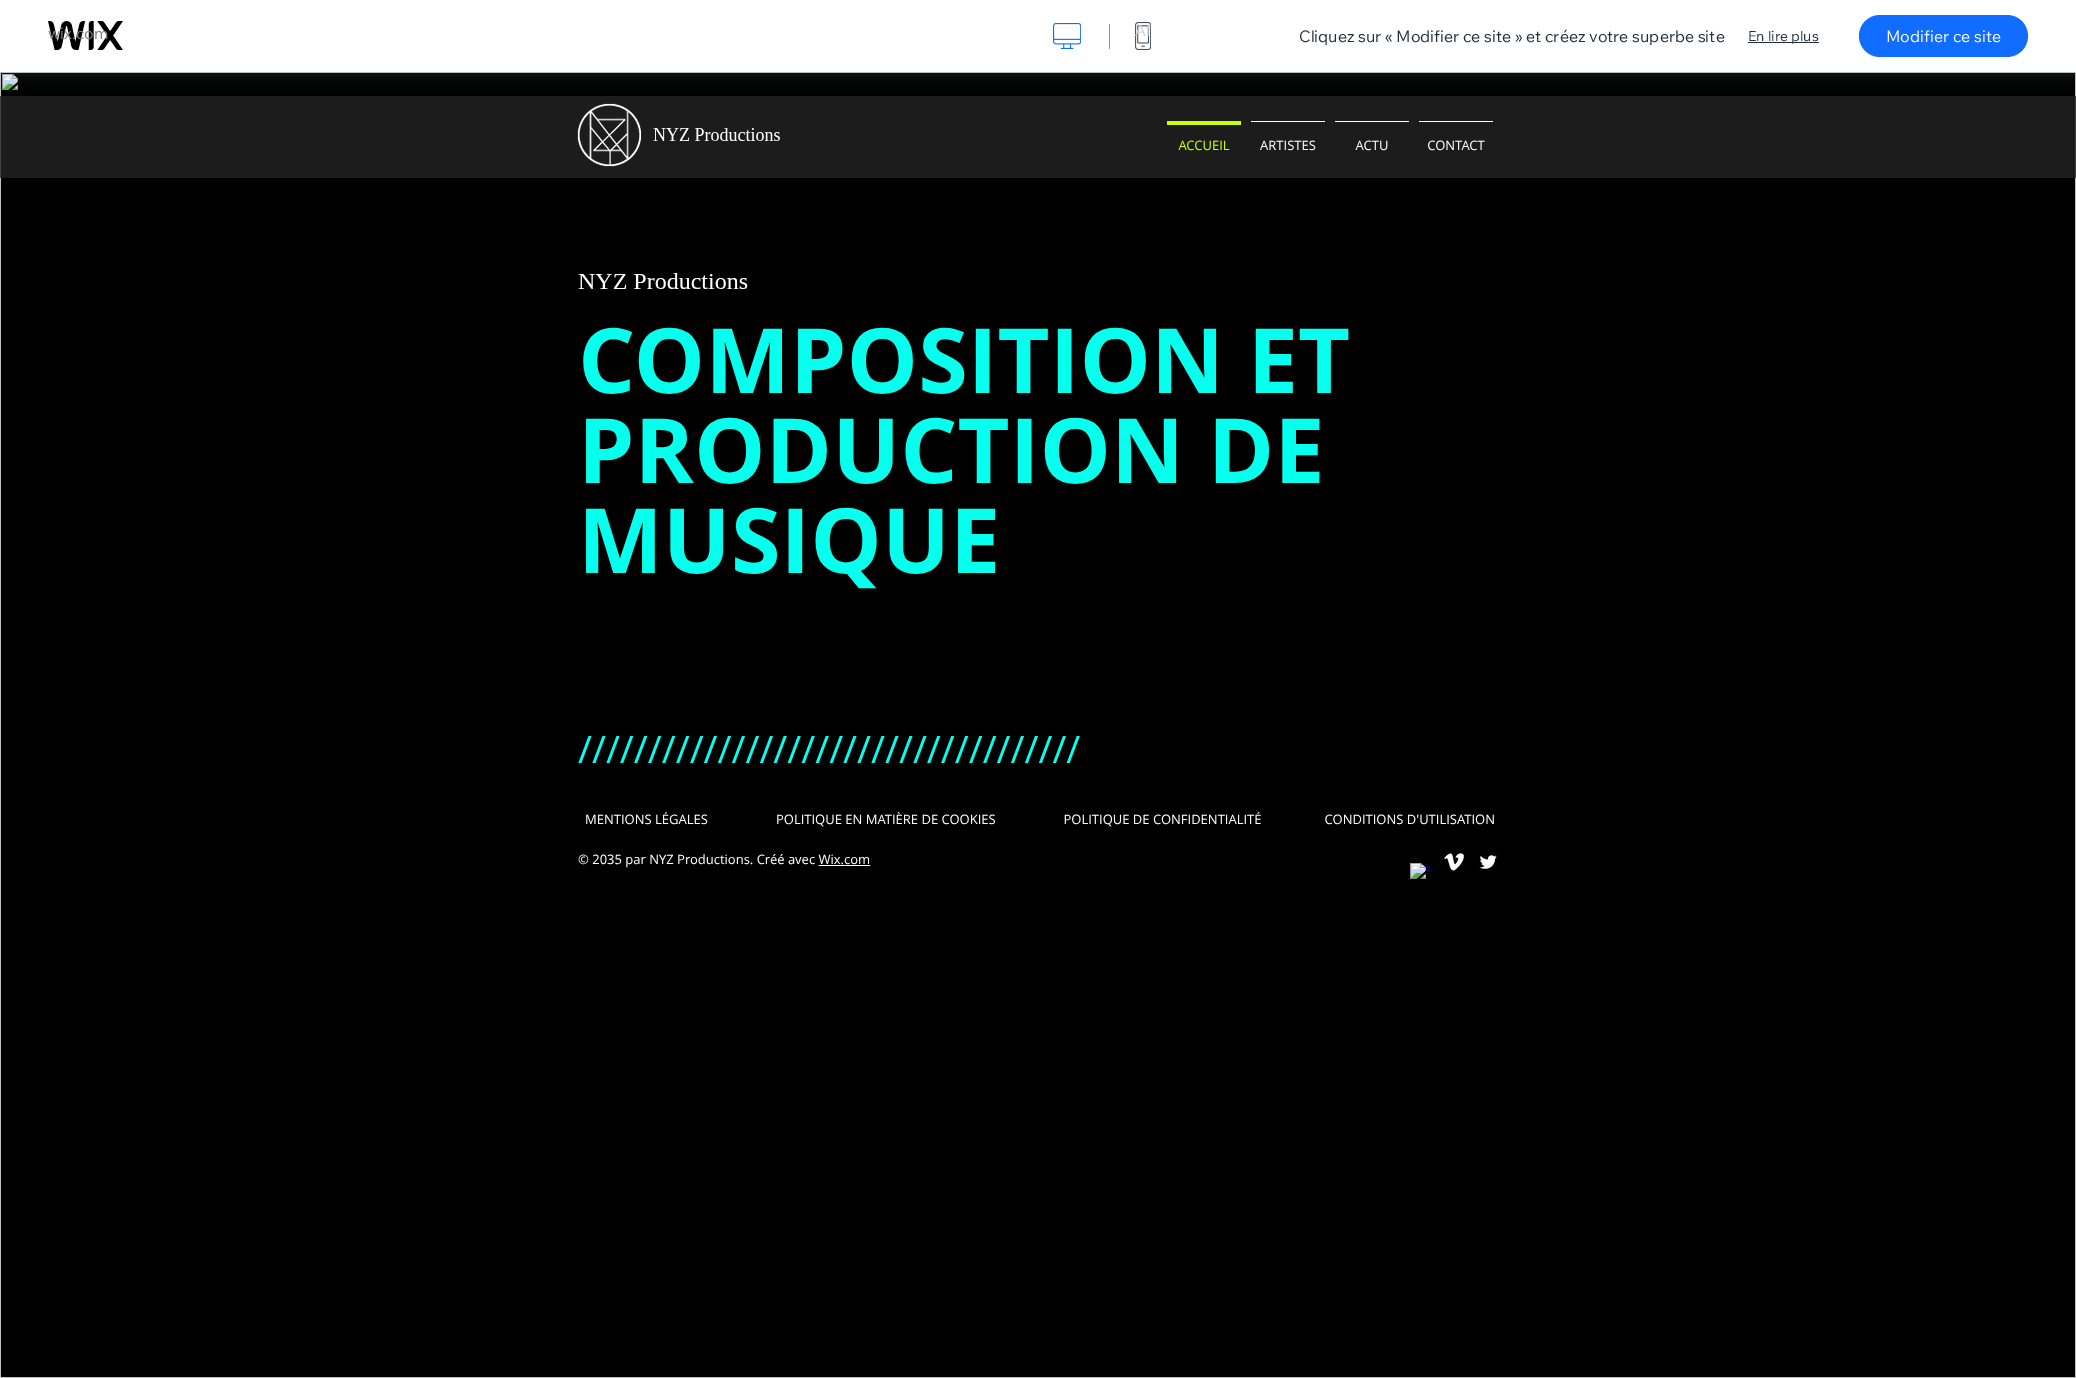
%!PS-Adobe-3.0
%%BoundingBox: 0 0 2076 1378
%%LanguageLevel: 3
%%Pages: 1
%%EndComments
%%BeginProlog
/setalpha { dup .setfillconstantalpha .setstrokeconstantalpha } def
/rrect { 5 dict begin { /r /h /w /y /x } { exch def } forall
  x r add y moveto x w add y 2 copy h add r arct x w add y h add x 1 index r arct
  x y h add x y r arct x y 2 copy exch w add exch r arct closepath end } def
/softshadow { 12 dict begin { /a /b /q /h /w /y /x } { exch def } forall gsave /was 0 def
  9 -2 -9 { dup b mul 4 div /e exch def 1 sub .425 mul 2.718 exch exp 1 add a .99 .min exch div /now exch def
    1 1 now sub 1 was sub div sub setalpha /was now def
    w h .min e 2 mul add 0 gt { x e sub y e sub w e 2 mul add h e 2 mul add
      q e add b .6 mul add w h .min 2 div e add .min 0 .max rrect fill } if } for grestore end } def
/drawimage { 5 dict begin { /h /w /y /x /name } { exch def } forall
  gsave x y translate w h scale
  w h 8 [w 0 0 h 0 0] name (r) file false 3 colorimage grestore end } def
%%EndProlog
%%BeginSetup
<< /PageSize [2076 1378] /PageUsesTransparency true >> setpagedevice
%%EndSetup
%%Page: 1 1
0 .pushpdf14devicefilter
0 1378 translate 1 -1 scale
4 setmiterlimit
1 setgray
0 0 2076 1378 rectfill
(images/4.raw) 0 72 2076 1306 drawimage
0.506 0.635 0.714 setrgbcolor
0 2 2076 72 0 9 0.2 softshadow
1 setgray
0 0 2076 72 rectfill
(images/1.raw) 48 21 75 29 drawimage
(images/2.raw) 1053 23 28 26 drawimage
0.565 0.596 0.62 setrgbcolor
1109 24 1 25 rectfill
(images/3.raw) 1135 22 16 28 drawimage
0.125 0.188 0.235 setrgbcolor
1748 42 71 1 rectfill
0.067 0.427 1 setrgbcolor
1859 15 169 42 21 rrect fill
/WixMadeforText-Regular [16 0 0 -16 0 0] selectfont
0.502 setgray
48 39 moveto (wix.com) show
/LiberationSans-Regular [16 0 0 -16 0 0] selectfont
0.812 0.827 0.839 setrgbcolor
1135 36 moveto (Af) show
/WixMadeforText-Regular [16 0 0 -16 0 0] selectfont
0.125 0.188 0.235 setrgbcolor
1299 42 moveto (Cliquez sur « Modifier ce site » et créez votre superbe site) show
/WixMadeforText-Regular [14 0 0 -14 0 0] selectfont
1748 41 moveto (En lire plus) show
/WixMadeforText-Regular [16 0 0 -16 0 0] selectfont
1 setgray
1886 42 moveto (Modifier ce site) show
.poppdf14devicefilter showpage
%%EOF
